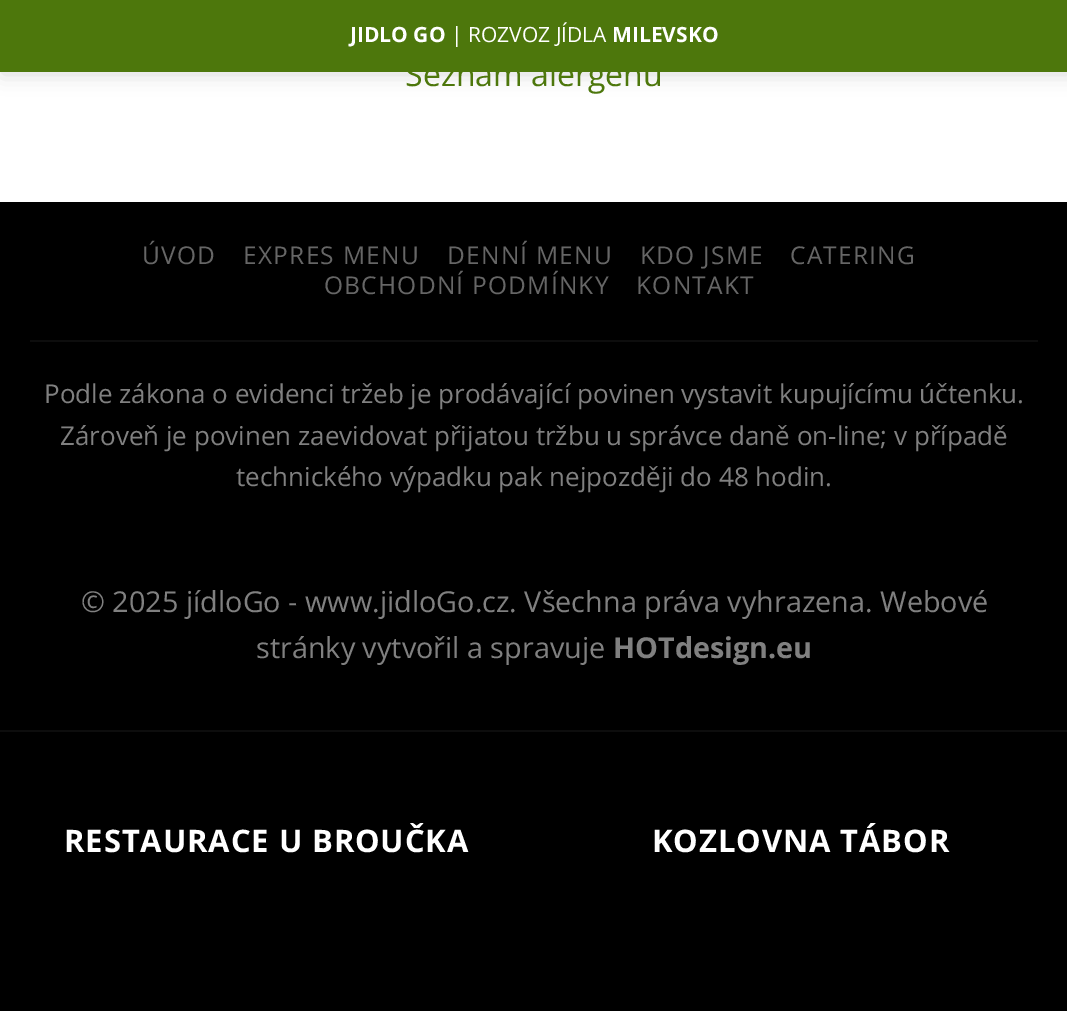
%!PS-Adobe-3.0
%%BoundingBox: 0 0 1067 1011
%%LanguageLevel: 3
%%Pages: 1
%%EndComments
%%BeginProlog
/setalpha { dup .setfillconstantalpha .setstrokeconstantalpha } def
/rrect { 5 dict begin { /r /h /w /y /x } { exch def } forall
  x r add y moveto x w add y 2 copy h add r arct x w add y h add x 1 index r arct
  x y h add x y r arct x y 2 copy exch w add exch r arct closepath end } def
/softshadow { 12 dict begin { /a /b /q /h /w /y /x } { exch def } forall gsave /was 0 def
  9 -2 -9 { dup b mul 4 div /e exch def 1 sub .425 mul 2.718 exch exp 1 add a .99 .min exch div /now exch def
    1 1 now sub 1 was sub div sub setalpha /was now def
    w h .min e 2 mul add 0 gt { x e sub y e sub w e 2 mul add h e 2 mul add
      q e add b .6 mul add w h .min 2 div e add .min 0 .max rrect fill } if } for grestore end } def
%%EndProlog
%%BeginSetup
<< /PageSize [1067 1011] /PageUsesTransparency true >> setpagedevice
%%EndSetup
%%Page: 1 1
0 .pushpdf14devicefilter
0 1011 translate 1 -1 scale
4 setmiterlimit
0 setgray
0 0 1067 1011 rectfill
1 setgray
0 72 1067 130 rectfill
0 setgray
2 2 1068 72 0 10 0.15 softshadow
0.302 0.467 0.047 setrgbcolor
0 0 1067 72 rectfill
0.051 setgray
30 340 1008 2 rectfill
0 730 1067 2 rectfill
/OpenSans-Bold [21 0 0 -21 0 0] selectfont
1 setgray
350 42 moveto (JIDLO GO) show
/OpenSans-Regular [21 0 0 -21 0 0] selectfont
451 42 moveto (| ROZVOZ JÍDLA) show
/OpenSans-Bold [21 0 0 -21 0 0] selectfont
612 42 moveto (MILEVSKO) show
/OpenSans-Regular [32 0 0 -32 0 0] selectfont
0.302 0.467 0.047 setrgbcolor
405 86 moveto (Seznam alergenů) show
/OpenSans-Regular [24.5 0 0 -24.5 0 0] selectfont
0.4 setgray
142 264 moveto 1.25 0 (ÚVOD) ashow
243 264 moveto 1.25 0 (EXPRES MENU) ashow
447 264 moveto 1.25 0 (DENNÍ MENU) ashow
640 264 moveto 1.25 0 (KDO JSME) ashow
790 264 moveto 1.25 0 (CATERING) ashow
324 294 moveto 1.25 0 (OBCHODNÍ PODMÍNKY) ashow
636 294 moveto 1.25 0 (KONTAKT) ashow
/OpenSans-Regular [26 0 0 -26 0 0] selectfont
0.502 setgray
44 403 moveto (Podle zákona o evidenci tržeb je prodávající povinen vystavit kupujícímu účtenku.) show
60 445 moveto (Zároveň je povinen zaevidovat přijatou tržbu u správce daně on-line; v případě) show
236 486 moveto (technického výpadku pak nejpozději do 48 hodin.) show
/OpenSans-Regular [28.8 0 0 -28.8 0 0] selectfont
81 612 moveto (© 2025 jídloGo - www.jidloGo.cz. Všechna práva vyhrazena. Webové) show
256 658 moveto (stránky vytvořil a spravuje) show
/OpenSans-Bold [28.8 0 0 -28.8 0 0] selectfont
613 658 moveto (HOTdesign.eu) show
/OpenSans-Bold [31 0 0 -31 0 0] selectfont
1 setgray
64 852 moveto 0.9 0 (RESTAURACE U BROUČKA) ashow
652 852 moveto 0.9 0 (KOZLOVNA TÁBOR) ashow
.poppdf14devicefilter showpage
%%EOF
